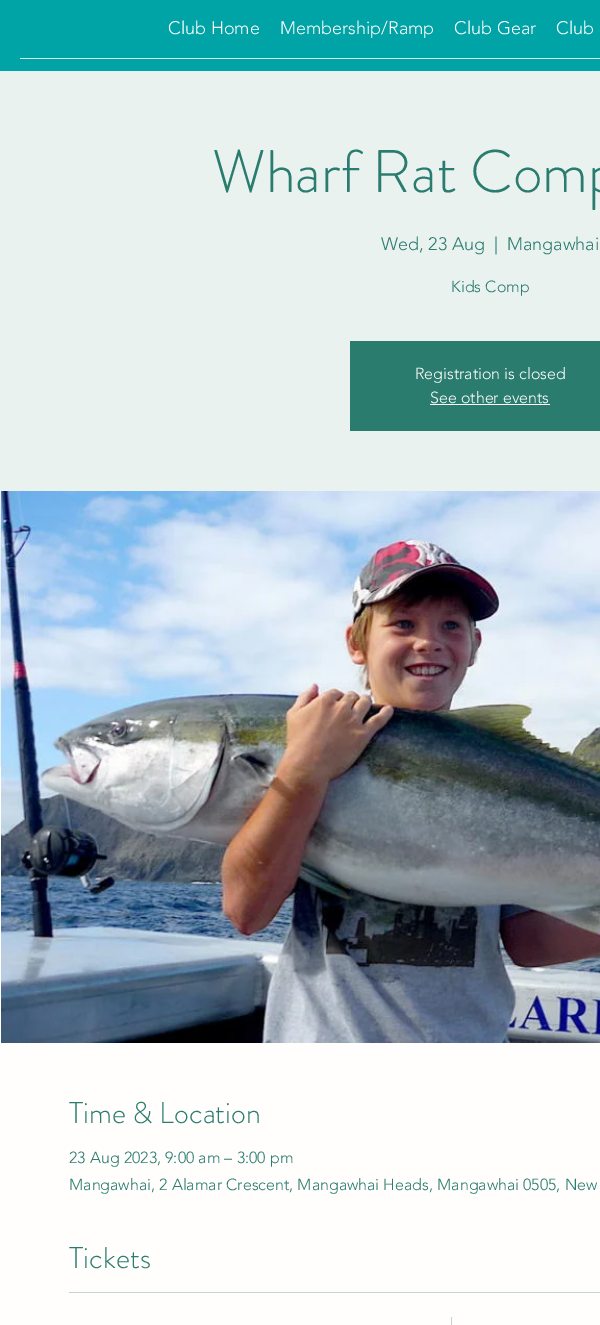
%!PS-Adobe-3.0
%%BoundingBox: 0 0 600 1325
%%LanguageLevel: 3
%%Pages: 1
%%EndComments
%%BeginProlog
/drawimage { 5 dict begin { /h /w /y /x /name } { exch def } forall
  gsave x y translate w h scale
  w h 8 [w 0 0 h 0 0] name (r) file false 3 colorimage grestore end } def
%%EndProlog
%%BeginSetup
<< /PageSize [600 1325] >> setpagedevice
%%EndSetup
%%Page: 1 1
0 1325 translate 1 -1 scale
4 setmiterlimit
1 0.996 0.988 setrgbcolor
0 0 600 1325 rectfill
0 0.643 0.655 setrgbcolor
0 0 600 71 rectfill
0.851 0.945 0.937 setrgbcolor
20 58 580 1 rectfill
0.918 0.949 0.937 setrgbcolor
0 71 600 696 rectfill
0.165 0.486 0.435 setrgbcolor
350 341 250 90 rectfill
1 0.996 0.988 setrgbcolor
430 404 120 1 rectfill
(images/1.raw) 1 491 599 552 drawimage
0.749 0.843 0.824 setrgbcolor
69 1292 531 1 rectfill
451 1317 1 8 rectfill
/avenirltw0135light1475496-Light [18 0 0 -18 0 0] selectfont
1 0.996 0.988 setrgbcolor
168 34 moveto (Club Home) show
280 34 moveto (Membership/Ramp) show
454 34 moveto (Club Gear) show
556 34 moveto (Club) show
/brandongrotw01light-Light [60 0 0 -60 0 0] selectfont
0.165 0.486 0.435 setrgbcolor
212 192 moveto (Wharf Rat Comp) show
/avenirltw0135light1475496-Light [18 0 0 -18 0 0] selectfont
381 250 moveto (Wed, 23 Aug) show
494 250 moveto (|) show
507 250 moveto (Mangawhai) show
/avenirltw0135light1475496-Light [16 0 0 -16 0 0] selectfont
451 292 moveto (Kids Comp) show
1 0.996 0.988 setrgbcolor
415 379 moveto (Registration is closed) show
430 403 moveto (See other events) show
/brandongrotw01light-Light [30 0 0 -30 0 0] selectfont
0.165 0.486 0.435 setrgbcolor
69 1123 moveto (Time & Location) show
/avenirltw0135light1475496-Light [16 0 0 -16 0 0] selectfont
69 1163 moveto (23 Aug 2023, 9:00 am – 3:00 pm) show
69 1190 moveto (Mangawhai, 2 Alamar Crescent, Mangawhai Heads, Mangawhai 0505, New) show
/brandongrotw01light-Light [30 0 0 -30 0 0] selectfont
69 1268 moveto (Tickets) show
showpage
%%EOF
